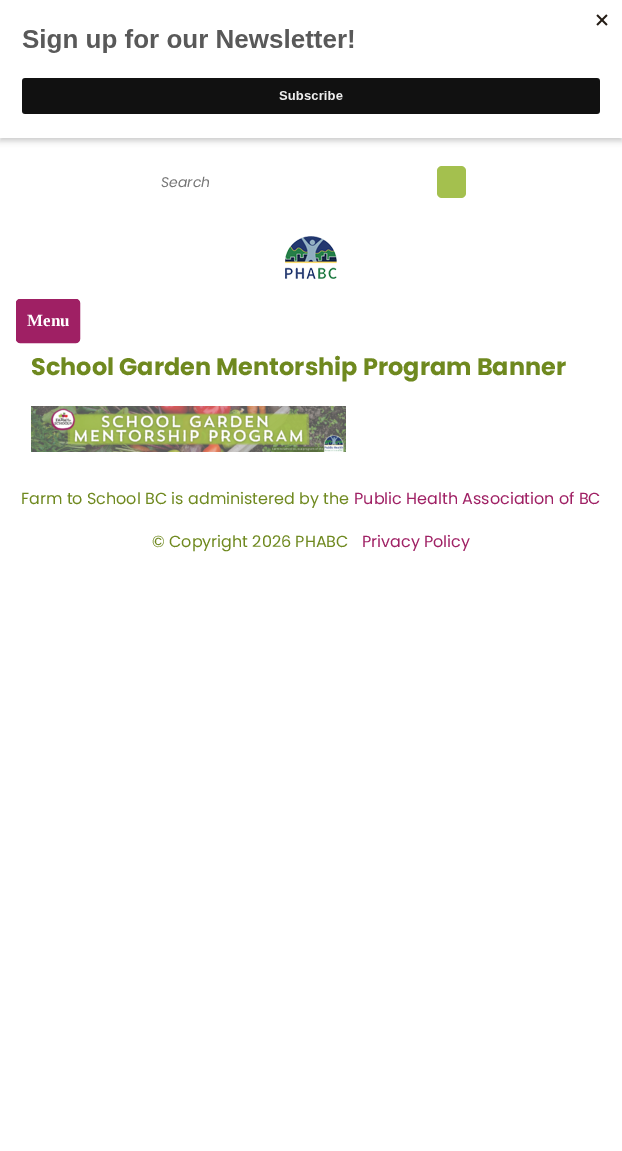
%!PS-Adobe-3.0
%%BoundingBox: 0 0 622 1151
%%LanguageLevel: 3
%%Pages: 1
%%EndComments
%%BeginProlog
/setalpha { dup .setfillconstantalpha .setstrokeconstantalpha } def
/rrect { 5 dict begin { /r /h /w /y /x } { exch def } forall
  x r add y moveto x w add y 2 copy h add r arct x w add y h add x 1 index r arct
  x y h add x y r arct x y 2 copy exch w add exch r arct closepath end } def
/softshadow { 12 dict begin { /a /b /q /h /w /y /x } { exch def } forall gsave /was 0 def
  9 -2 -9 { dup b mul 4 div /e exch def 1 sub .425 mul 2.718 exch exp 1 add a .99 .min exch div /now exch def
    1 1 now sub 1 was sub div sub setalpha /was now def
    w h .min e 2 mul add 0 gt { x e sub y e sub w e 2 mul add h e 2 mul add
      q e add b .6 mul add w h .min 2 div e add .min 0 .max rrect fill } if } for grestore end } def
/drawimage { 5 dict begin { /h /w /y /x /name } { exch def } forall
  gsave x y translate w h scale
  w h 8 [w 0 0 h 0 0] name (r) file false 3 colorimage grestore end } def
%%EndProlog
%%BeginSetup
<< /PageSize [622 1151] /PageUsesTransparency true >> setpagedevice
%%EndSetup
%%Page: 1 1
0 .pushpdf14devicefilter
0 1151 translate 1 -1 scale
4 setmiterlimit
1 setgray
0 0 622 1151 rectfill
0 setgray
0 3 622 138 0 3 0.2 softshadow
1 setgray
0 0 622 138 rectfill
(images/1.raw) 22 14 586 100 drawimage
0.643 0.753 0.306 setrgbcolor
437 166 29 32 5 rrect fill
(images/2.raw) 285 236 52 43 drawimage
0.624 0.125 0.392 setrgbcolor
16.5 299.5 63 43 3.5 rrect gsave fill grestore
stroke
(images/3.raw) 31 406 315 46 drawimage
/Poppins-Italic [14 0 0 -14 0 0] selectfont
0.459 setgray
161 187 moveto (Search) show
/LiberationSerif-Bold [17 0 0 -17 0 0] selectfont
1 setgray
27 326 moveto (Menu) show
/Poppins-Bold [24 0 0 -24 0 0] selectfont
0.435 0.537 0.122 setrgbcolor
31 375 moveto (School Garden Mentorship Program Banner) show
/Poppins-Regular [16 0 0 -16 0 0] selectfont
21 504 moveto (Farm to School BC is administered by the) show
0.624 0.125 0.392 setrgbcolor
354 504 moveto (Public Health Association of BC) show
0.435 0.537 0.122 setrgbcolor
152 547 moveto (© Copyright 2026 PHABC) show
0.624 0.125 0.392 setrgbcolor
362 547 moveto (Privacy Policy) show
.poppdf14devicefilter showpage
%%EOF
